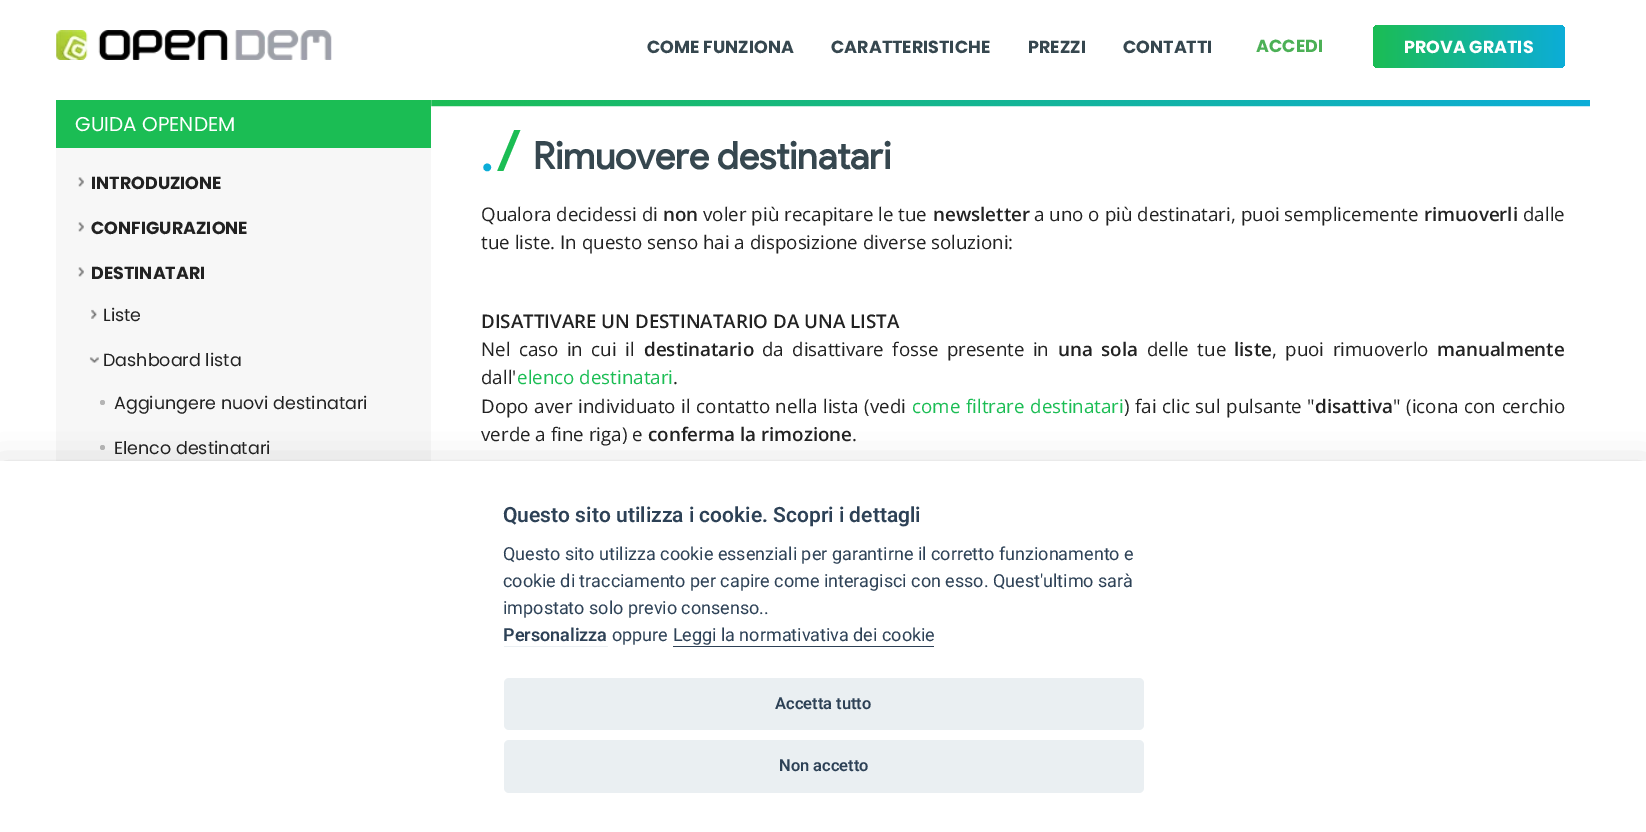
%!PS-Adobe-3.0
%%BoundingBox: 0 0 1646 832
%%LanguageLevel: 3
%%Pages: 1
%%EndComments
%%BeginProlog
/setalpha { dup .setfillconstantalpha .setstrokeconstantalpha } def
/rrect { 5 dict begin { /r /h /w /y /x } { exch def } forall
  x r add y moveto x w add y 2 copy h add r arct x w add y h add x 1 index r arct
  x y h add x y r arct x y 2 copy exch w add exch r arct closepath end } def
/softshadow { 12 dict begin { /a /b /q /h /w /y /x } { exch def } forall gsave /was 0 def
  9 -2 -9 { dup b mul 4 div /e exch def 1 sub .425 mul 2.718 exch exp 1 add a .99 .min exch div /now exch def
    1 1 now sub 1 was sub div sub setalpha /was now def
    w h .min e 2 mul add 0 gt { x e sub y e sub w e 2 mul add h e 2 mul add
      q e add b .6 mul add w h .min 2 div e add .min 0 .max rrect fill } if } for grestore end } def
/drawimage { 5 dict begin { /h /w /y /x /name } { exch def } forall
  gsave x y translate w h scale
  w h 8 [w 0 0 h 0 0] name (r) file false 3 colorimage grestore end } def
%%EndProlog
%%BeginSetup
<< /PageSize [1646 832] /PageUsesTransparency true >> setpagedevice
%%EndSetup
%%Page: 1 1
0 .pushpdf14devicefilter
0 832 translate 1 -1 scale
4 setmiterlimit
1 setgray
0 0 1646 832 rectfill
(images/1.raw) 56 30 276 30 drawimage
gsave 1373 25 192 43 5 rrect clip newpath
<< /ShadingType 2 /ColorSpace /DeviceRGB /Coords [1373 46 1565 46] /Extend [true true] /Function << /FunctionType 2 /Domain [0 1] /C0 [0.106 0.741 0.329] /C1 [0.047 0.678 0.847] /N 1 >> >> shfill grestore
0.969 setgray
56 148 375 313 rectfill
0.106 0.741 0.329 setrgbcolor
56 100 375 48 rectfill
(images/2.raw) 78 177 6 10 drawimage
(images/2.raw) 78 222 6 10 drawimage
(images/2.raw) 78 267 6 10 drawimage
(images/3.raw) 91 309 6 10 drawimage
(images/4.raw) 89 357 10 6 drawimage
0.71 setgray
newpath 102.5 402.5 2.5 0 360 arc closepath fill
newpath 102.5 447.5 2.5 0 360 arc closepath fill
(images/5.raw) 431 100 1159 7 drawimage
0.008 0.008 0.012 setrgbcolor
0 474 1646 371 0 19 0.28 softshadow
1 setgray
0 461 1646 371 rectfill
0.918 0.937 0.949 setrgbcolor
504 646 104 1 rectfill
0.176 0.255 0.337 setrgbcolor
673 646 261 1 rectfill
0.918 0.937 0.949 setrgbcolor
504 678 640 52 5 rrect fill
504 740 640 53 5 rrect fill
/Poppins-Bold [17.5 0 0 -17.5 0 0] selectfont
0.212 0.278 0.31 setrgbcolor
647 53 moveto (COME FUNZIONA) show
831 53 moveto (CARATTERISTICHE) show
1028 53 moveto (PREZZI) show
1123 53 moveto (CONTATTI) show
0.298 0.69 0.337 setrgbcolor
1256 52 moveto (ACCEDI) show
1 setgray
1404 53 moveto (PROVA GRATIS) show
/Poppins-Regular [20 0 0 -20 0 0] selectfont
75 131 moveto (GUIDA OPENDEM) show
/Poppins-Bold [17.5 0 0 -17.5 0 0] selectfont
0.133 setgray
91 189 moveto (INTRODUZIONE) show
91 234 moveto (CONFIGURAZIONE) show
91 279 moveto (DESTINATARI) show
/Poppins-Regular [17.5 0 0 -17.5 0 0] selectfont
103 321 moveto (Liste) show
103 366 moveto (Dashboard lista) show
114 409 moveto (Aggiungere nuovi destinatari) show
114 454 moveto (Elenco destinatari) show
/ProductSans-Bold [48 0 0 -48 0 0] selectfont
0.047 0.678 0.847 setrgbcolor
481 171 moveto (.) show
/ProductSans-Bold [55 0 0 -55 0 0] selectfont
0.106 0.741 0.329 setrgbcolor
496 171 moveto (/) show
/ProductSans-Bold [37.5 0 0 -37.5 0 0] selectfont
0.212 0.278 0.31 setrgbcolor
533 169 moveto (Rimuovere destinatari) show
/OpenSans-Regular [18.75 0 0 -18.75 0 0] selectfont
0.133 setgray
481 221 moveto (Qualora decidessi di) show
/OpenSans-SemiBold [18.75 0 0 -18.75 0 0] selectfont
663 221 moveto (non) show
/OpenSans-Regular [18.75 0 0 -18.75 0 0] selectfont
703 221 moveto (voler più recapitare le tue) show
/OpenSans-SemiBold [18.75 0 0 -18.75 0 0] selectfont
933 221 moveto (newsletter) show
/OpenSans-Regular [18.75 0 0 -18.75 0 0] selectfont
1034 221 moveto (a uno o più destinatari, puoi semplicemente) show
/OpenSans-SemiBold [18.75 0 0 -18.75 0 0] selectfont
1424 221 moveto (rimuoverli) show
/OpenSans-Regular [18.75 0 0 -18.75 0 0] selectfont
1523 221 moveto (dalle) show
481 249 moveto (tue liste. In questo senso hai a disposizione diverse soluzioni:) show
/OpenSans-SemiBold [18.75 0 0 -18.75 0 0] selectfont
481 328 moveto (DISATTIVARE UN DESTINATARIO DA UNA LISTA) show
/OpenSans-Regular [18.75 0 0 -18.75 0 0] selectfont
481 356 moveto 3.5 0 32 (Nel caso in cui il) widthshow
/OpenSans-SemiBold [18.75 0 0 -18.75 0 0] selectfont
644 356 moveto (destinatario) show
/OpenSans-Regular [18.75 0 0 -18.75 0 0] selectfont
762 356 moveto 3.5 0 32 (da disattivare fosse presente in) widthshow
/OpenSans-SemiBold [18.75 0 0 -18.75 0 0] selectfont
1058 356 moveto 3.5 0 32 (una sola) widthshow
/OpenSans-Regular [18.75 0 0 -18.75 0 0] selectfont
1147 356 moveto 3.5 0 32 (delle tue) widthshow
/OpenSans-SemiBold [18.75 0 0 -18.75 0 0] selectfont
1234 356 moveto (liste) show
/OpenSans-Regular [18.75 0 0 -18.75 0 0] selectfont
1272 356 moveto 3.5 0 32 (, puoi rimuoverlo) widthshow
/OpenSans-SemiBold [18.75 0 0 -18.75 0 0] selectfont
1437 356 moveto (manualmente) show
/OpenSans-Regular [18.75 0 0 -18.75 0 0] selectfont
481 384 moveto (dall') show
0.106 0.741 0.329 setrgbcolor
517 384 moveto (elenco destinatari) show
0.133 setgray
673 384 moveto (.) show
481 413 moveto 0.75 0 32 (Dopo aver individuato il contatto nella lista \(vedi) widthshow
0.106 0.741 0.329 setrgbcolor
912 413 moveto 0.75 0 32 (come filtrare destinatari) widthshow
0.133 setgray
1124 413 moveto 0.75 0 32 (\) fai clic sul pulsante ") widthshow
/OpenSans-SemiBold [18.75 0 0 -18.75 0 0] selectfont
1315 413 moveto (disattiva) show
/OpenSans-Regular [18.75 0 0 -18.75 0 0] selectfont
1393 413 moveto 0.75 0 32 (" \(icona con cerchio) widthshow
481 441 moveto (verde a fine riga\) e) show
/OpenSans-SemiBold [18.75 0 0 -18.75 0 0] selectfont
648 441 moveto (conferma la rimozione) show
/OpenSans-Regular [18.75 0 0 -18.75 0 0] selectfont
852 441 moveto (.) show
/Roboto-SemiBold [21 0 0 -21 0 0] selectfont
0.176 0.255 0.337 setrgbcolor
503 522 moveto (Questo sito utilizza i cookie. Scopri i dettagli) show
/Roboto-Regular [18 0 0 -18 0 0] selectfont
503 560 moveto (Questo sito utilizza cookie essenziali per garantirne il corretto funzionamento e) show
503 587 moveto (cookie di tracciamento per capire come interagisci con esso. Quest'ultimo sarà) show
503 614 moveto (impostato solo previo consenso..) show
/Roboto-SemiBold [18 0 0 -18 0 0] selectfont
503 641 moveto (Personalizza) show
/Roboto-Regular [18 0 0 -18 0 0] selectfont
612 641 moveto (oppure Leggi la normativativa dei cookie) show
/Roboto-SemiBold [16.5 0 0 -16.5 0 0] selectfont
775 709 moveto (Accetta tutto) show
779 771 moveto (Non accetto) show
.poppdf14devicefilter showpage
%%EOF
